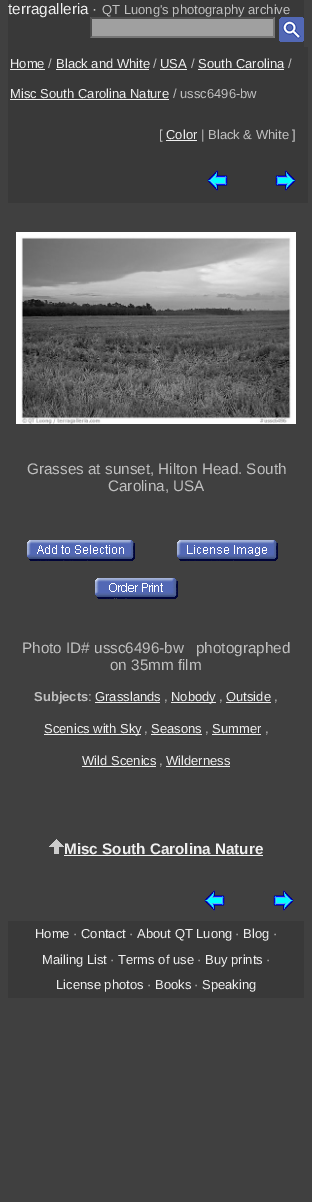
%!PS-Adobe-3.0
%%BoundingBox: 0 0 312 1202
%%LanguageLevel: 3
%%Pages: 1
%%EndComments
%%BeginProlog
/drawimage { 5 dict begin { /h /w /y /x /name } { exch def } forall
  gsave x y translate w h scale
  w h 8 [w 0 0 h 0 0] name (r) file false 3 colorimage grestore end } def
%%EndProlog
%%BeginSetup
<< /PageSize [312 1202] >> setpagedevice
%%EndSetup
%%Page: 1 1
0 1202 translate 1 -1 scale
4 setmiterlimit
0.251 setgray
0 0 312 1202 rectfill
0.224 setgray
8 0 296 47 rectfill
0.627 setgray
90 17 185 21 rectfill
0.31 setgray
newpath 90 17 moveto 275 17 lineto 273 19 lineto 92 19 lineto closepath fill
0.463 setgray
newpath 275 17 moveto 275 38 lineto 273 36 lineto 273 19 lineto closepath fill
newpath 275 38 moveto 90 38 lineto 92 36 lineto 273 36 lineto closepath fill
0.31 setgray
newpath 90 38 moveto 90 17 lineto 92 19 lineto 92 36 lineto closepath fill
(images/1.raw) 279 17 25 25 drawimage
0.224 setgray
8 47 300 156 rectfill
0.941 setgray
10 69 35 1 rectfill
56 69 93 1 rectfill
160 69 27 1 rectfill
198 69 86 1 rectfill
10 99 159 1 rectfill
166 140 31 1 rectfill
(images/2.raw) 207 170 21 21 drawimage
(images/3.raw) 275 170 21 21 drawimage
(images/4.raw) 16 232 280 192 drawimage
(images/5.raw) 27 540 108 21 drawimage
(images/6.raw) 177 540 101 21 drawimage
(images/7.raw) 95 578 83 21 drawimage
95 702 65 1 rectfill
171 702 45 1 rectfill
226 702 45 1 rectfill
44 734 97 1 rectfill
151 734 51 1 rectfill
212 734 49 1 rectfill
82 766 74 1 rectfill
166 766 64 1 rectfill
(images/8.raw) 49 839 15 15 drawimage
64 855 199 1 rectfill
(images/9.raw) 204 890 21 21 drawimage
(images/10.raw) 273 890 21 21 drawimage
0.224 setgray
8 921 296 77 rectfill
/LiberationSans-Regular [15.25 0 0 -15.25 0 0] selectfont
0.941 setgray
8 14 moveto (terragalleria) show
0.753 setgray
92 14 moveto (·) show
/LiberationSans-Regular [13 0 0 -13 0 0] selectfont
102 14 moveto (QT Luong's photography archive) show
0.941 setgray
10 68 moveto (Home) show
0.753 setgray
48 68 moveto (/) show
0.941 setgray
56 68 moveto (Black and White) show
0.753 setgray
153 68 moveto (/) show
0.941 setgray
160 68 moveto (USA) show
0.753 setgray
191 68 moveto (/) show
0.941 setgray
198 68 moveto (South Carolina) show
0.753 setgray
288 68 moveto (/) show
0.941 setgray
10 98 moveto (Misc South Carolina Nature) show
0.753 setgray
173 98 moveto (/ ussc6496-bw) show
159 139 moveto ([) show
0.941 setgray
166 139 moveto (Color) show
0.753 setgray
201 139 moveto (| Black & White ]) show
/LiberationSans-Regular [15.25 0 0 -15.25 0 0] selectfont
27 474 moveto (Grasses at sunset, Hilton Head. South) show
108 491 moveto (Carolina, USA) show
22 653 moveto (Photo ID# ussc6496-bw) show
196 653 moveto (photographed) show
110 670 moveto (on 35mm film) show
/LiberationSans-Bold [13 0 0 -13 0 0] selectfont
34 701 moveto (Subjects) show
/LiberationSans-Regular [13 0 0 -13 0 0] selectfont
88 701 moveto (:) show
0.941 setgray
95 701 moveto (Grasslands) show
0.753 setgray
164 701 moveto (,) show
0.941 setgray
171 701 moveto (Nobody) show
0.753 setgray
219 701 moveto (,) show
0.941 setgray
226 701 moveto (Outside) show
0.753 setgray
274 701 moveto (,) show
0.941 setgray
44 733 moveto (Scenics with Sky) show
0.753 setgray
144 733 moveto (,) show
0.941 setgray
151 733 moveto (Seasons) show
0.753 setgray
205 733 moveto (,) show
0.941 setgray
212 733 moveto (Summer) show
0.753 setgray
265 733 moveto (,) show
0.941 setgray
82 765 moveto (Wild Scenics) show
0.753 setgray
159 765 moveto (,) show
0.941 setgray
166 765 moveto (Wilderness) show
/LiberationSans-Bold [15.25 0 0 -15.25 0 0] selectfont
64 854 moveto (Misc South Carolina Nature) show
/LiberationSans-Regular [13 0 0 -13 0 0] selectfont
35 938 moveto (Home) show
0.753 setgray
73 938 moveto (·) show
0.941 setgray
81 938 moveto (Contact) show
0.753 setgray
129 938 moveto (·) show
0.941 setgray
137 938 moveto (About QT Luong) show
0.753 setgray
235 938 moveto (·) show
0.941 setgray
243 938 moveto (Blog) show
0.753 setgray
273 938 moveto (·) show
0.941 setgray
42 964 moveto (Mailing List) show
0.753 setgray
110 964 moveto (·) show
0.941 setgray
118 964 moveto (Terms of use) show
0.753 setgray
197 964 moveto (·) show
0.941 setgray
205 964 moveto (Buy prints) show
0.753 setgray
266 964 moveto (·) show
0.941 setgray
56 989 moveto (License photos) show
0.753 setgray
147 989 moveto (·) show
0.941 setgray
155 989 moveto (Books) show
0.753 setgray
194 989 moveto (·) show
0.941 setgray
202 989 moveto (Speaking) show
showpage
%%EOF
